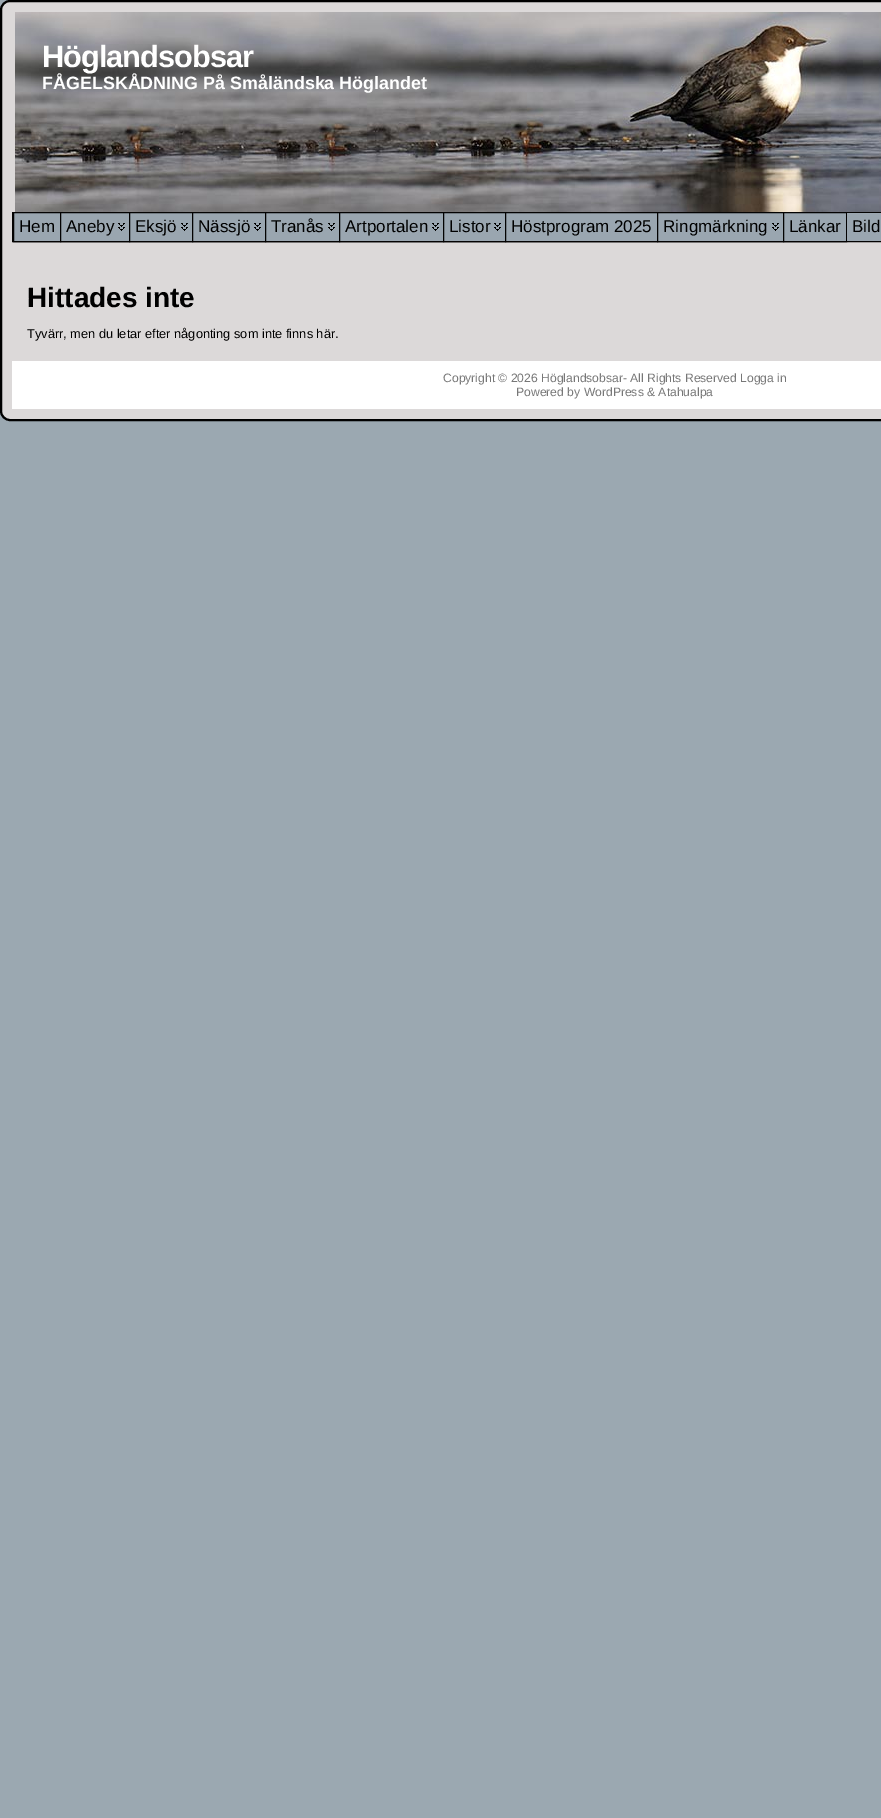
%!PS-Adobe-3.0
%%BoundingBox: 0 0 881 1818
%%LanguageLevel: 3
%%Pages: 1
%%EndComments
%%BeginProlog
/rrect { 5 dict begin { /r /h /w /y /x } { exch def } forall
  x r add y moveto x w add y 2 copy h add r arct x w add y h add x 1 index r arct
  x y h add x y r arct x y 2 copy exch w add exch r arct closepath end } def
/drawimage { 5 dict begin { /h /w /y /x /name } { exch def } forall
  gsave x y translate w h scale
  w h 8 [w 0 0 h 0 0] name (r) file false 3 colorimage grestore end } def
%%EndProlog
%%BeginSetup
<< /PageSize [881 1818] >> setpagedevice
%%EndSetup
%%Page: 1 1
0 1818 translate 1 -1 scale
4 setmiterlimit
0.608 0.659 0.694 setrgbcolor
0 0 881 1818 rectfill
0.863 0.851 0.851 setrgbcolor
1 1 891 419 9 rrect gsave fill grestore
0 setgray
2 setlinewidth
stroke
(images/1.raw) 15 12 866 200 drawimage
0.012 0.008 0.008 setrgbcolor
1 setlinewidth
12.5 212.5 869 29 rectstroke
0.604 0.651 0.69 setrgbcolor
newpath 13.5 212.5 moveto 60.5 212.5 lineto 60.5 241.5 lineto 13.5 241.5 lineto closepath gsave fill grestore
0.012 0.008 0.008 setrgbcolor
stroke
0.604 0.651 0.69 setrgbcolor
61 213 68 28 rectfill
(images/2.raw) 118 223 7 8 drawimage
0.012 0.008 0.008 setrgbcolor
60.5 212.5 69 29 rectstroke
0.604 0.651 0.69 setrgbcolor
130 213 62 28 rectfill
(images/2.raw) 181 223 7 8 drawimage
0.012 0.008 0.008 setrgbcolor
129.5 212.5 63 29 rectstroke
0.604 0.651 0.69 setrgbcolor
193 213 72 28 rectfill
(images/2.raw) 254 223 7 8 drawimage
0.012 0.008 0.008 setrgbcolor
192.5 212.5 73 29 rectstroke
0.604 0.651 0.69 setrgbcolor
266 213 73 28 rectfill
(images/2.raw) 328 223 7 8 drawimage
0.012 0.008 0.008 setrgbcolor
265.5 212.5 74 29 rectstroke
0.604 0.651 0.69 setrgbcolor
340 213 103 28 rectfill
(images/2.raw) 432 223 7 8 drawimage
0.012 0.008 0.008 setrgbcolor
339.5 212.5 104 29 rectstroke
0.604 0.651 0.69 setrgbcolor
444 213 61 28 rectfill
(images/2.raw) 494 223 7 8 drawimage
0.012 0.008 0.008 setrgbcolor
443.5 212.5 62 29 rectstroke
0.604 0.651 0.69 setrgbcolor
newpath 505.5 212.5 moveto 657.5 212.5 lineto 657.5 241.5 lineto 505.5 241.5 lineto closepath gsave fill grestore
0.012 0.008 0.008 setrgbcolor
stroke
0.604 0.651 0.69 setrgbcolor
658 213 125 28 rectfill
(images/2.raw) 772 223 7 8 drawimage
0.012 0.008 0.008 setrgbcolor
657.5 212.5 126 29 rectstroke
0.604 0.651 0.69 setrgbcolor
newpath 783.5 212.5 moveto 846.5 212.5 lineto 846.5 241.5 lineto 783.5 241.5 lineto closepath gsave fill grestore
0.012 0.008 0.008 setrgbcolor
stroke
0.604 0.651 0.69 setrgbcolor
847 213 34 28 rectfill
1 setgray
12 361 869 48 rectfill
/LiberationSans-Bold [30.75 0 0 -30.75 0 0] selectfont
42 67 moveto -1 0 (Höglandsobsar) ashow
/LiberationSans-Bold [17.9 0 0 -17.9 0 0] selectfont
42 89 moveto (FÅGELSKÅDNING På Småländska Höglandet) show
/LiberationSans-Regular [17 0 0 -17 0 0] selectfont
0 setgray
19 232 moveto (Hem) show
66 232 moveto (Aneby) show
135 232 moveto (Eksjö) show
198 232 moveto (Nässjö) show
271 232 moveto (Tranås) show
345 232 moveto (Artportalen) show
449 232 moveto (Listor) show
511 232 moveto (Höstprogram 2025) show
663 232 moveto (Ringmärkning) show
789 232 moveto (Länkar) show
852 232 moveto (Bild) show
/LiberationSans-Bold [28 0 0 -28 0 0] selectfont
27 307 moveto (Hittades inte) show
/LiberationSans-Regular [12.8 0 0 -12.8 0 0] selectfont
27 338 moveto (Tyvärr, men du letar efter någonting som inte finns här.) show
/LiberationSans-Regular [12.15 0 0 -12.15 0 0] selectfont
0.467 setgray
443 382 moveto (Copyright © 2026 Höglandsobsar- All Rights Reserved Logga in) show
516 396 moveto (Powered by WordPress & Atahualpa) show
showpage
%%EOF
